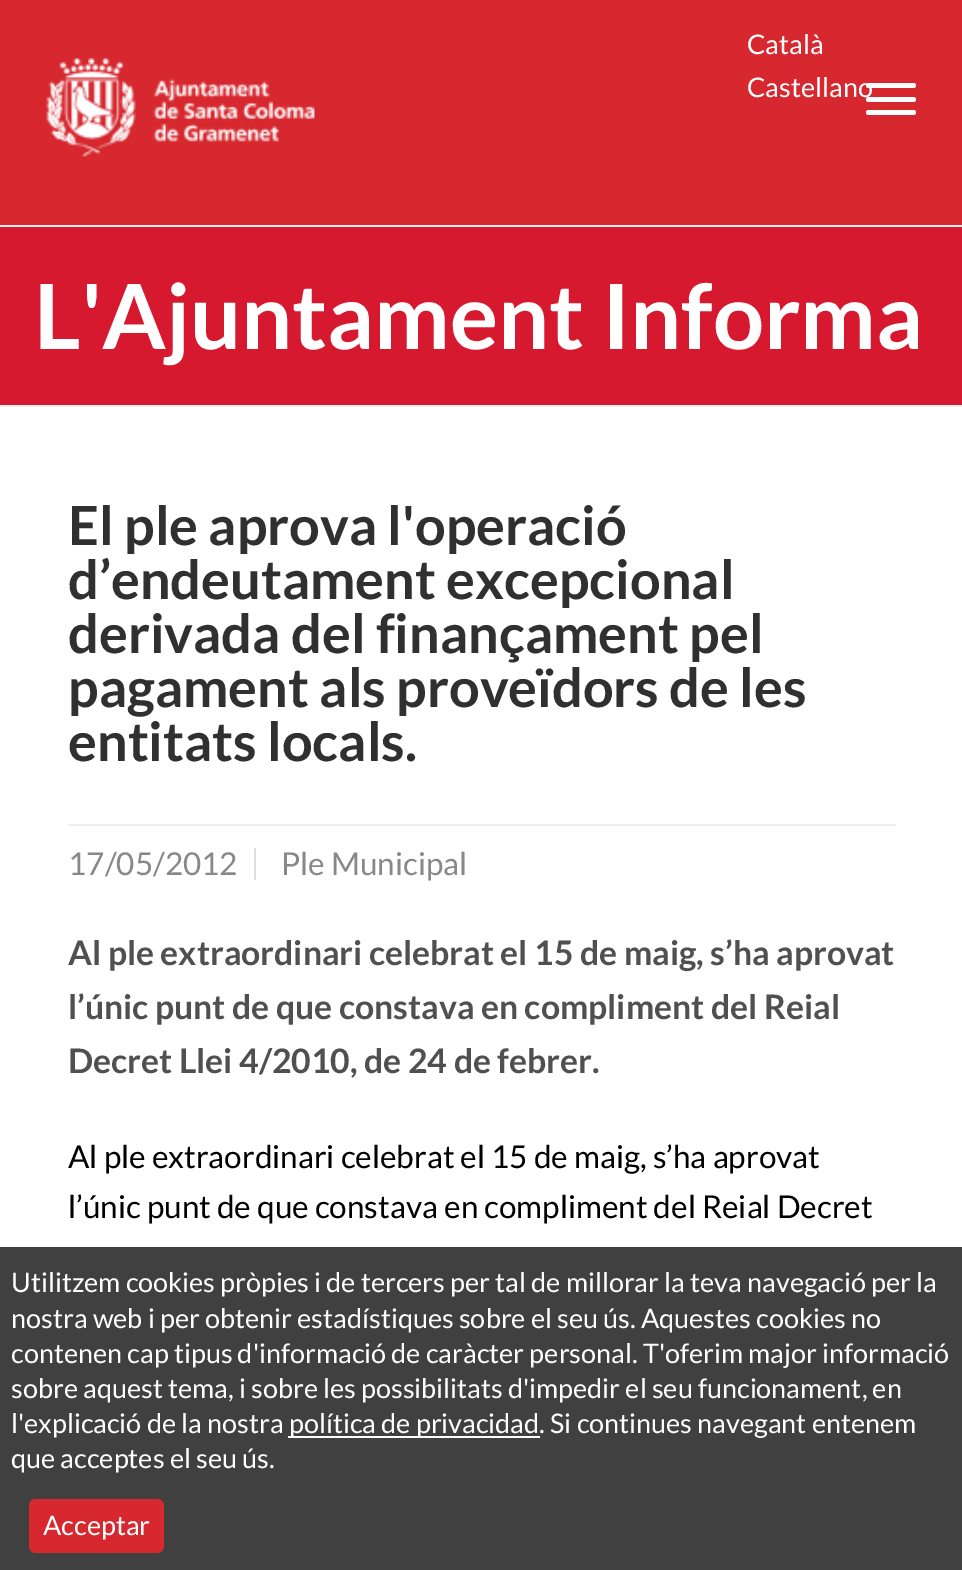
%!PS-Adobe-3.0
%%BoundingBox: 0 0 962 1570
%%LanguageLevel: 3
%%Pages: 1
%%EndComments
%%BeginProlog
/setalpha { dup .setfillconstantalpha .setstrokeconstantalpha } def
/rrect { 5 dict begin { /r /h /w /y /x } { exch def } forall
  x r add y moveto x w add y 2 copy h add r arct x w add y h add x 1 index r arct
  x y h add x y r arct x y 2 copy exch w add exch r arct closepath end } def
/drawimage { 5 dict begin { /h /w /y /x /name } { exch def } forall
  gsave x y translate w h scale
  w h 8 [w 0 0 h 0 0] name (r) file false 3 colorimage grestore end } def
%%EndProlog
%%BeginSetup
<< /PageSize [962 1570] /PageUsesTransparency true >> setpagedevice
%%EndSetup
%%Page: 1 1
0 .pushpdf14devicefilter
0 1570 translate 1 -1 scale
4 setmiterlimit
1 setgray
0 0 962 1570 rectfill
0.843 0.157 0.184 setrgbcolor
0 0 962 225 rectfill
0.933 setgray
0 405 962 2 rectfill
(images/1.raw) 46 58 269 99 drawimage
1 setgray
866 83 50 5 2.5 rrect fill
866 97 50 5 2.5 rrect fill
866 110 50 5 2.5 rrect fill
0.933 setgray
0 225 962 2 rectfill
0.843 0.098 0.184 setrgbcolor
0 227 962 178 rectfill
0.933 setgray
68 824 828 2 rectfill
0.867 setgray
254 848 2 32 rectfill
0.75 setalpha
0 setgray
0 1247 962 323 rectfill
1 setalpha
1 setgray
288 1436 252 2 rectfill
0.843 0.157 0.184 setrgbcolor
29 1499 135 54 7 rrect fill
/Lato-Regular [27 0 0 -27 0 0] selectfont
1 setgray
747 54 moveto (Català) show
747 97 moveto (Castellano) show
/Lato-Bold [90 0 0 -90 0 0] selectfont
34 349 moveto (L'Ajuntament Informa) show
/Lato-Bold [54 0 0 -54 0 0] selectfont
0.188 setgray
68 545 moveto (El ple aprova l'operació) show
68 599 moveto (d’endeutament excepcional) show
68 653 moveto (derivada del finançament pel) show
68 707 moveto (pagament als proveïdors de les) show
68 761 moveto (entitats locals.) show
/Lato-Regular [31.5 0 0 -31.5 0 0] selectfont
0.533 setgray
68 875 moveto (17/05/2012) show
281 875 moveto (Ple Municipal) show
/Lato-Bold [33.75 0 0 -33.75 0 0] selectfont
0.314 setgray
68 965 moveto (Al ple extraordinari celebrat el 15 de maig, s’ha aprovat) show
68 1019 moveto (l’únic punt de que constava en compliment del Reial) show
68 1073 moveto (Decret Llei 4/2010, de 24 de febrer.) show
/Lato-Regular [31.5 0 0 -31.5 0 0] selectfont
0 setgray
68 1168 moveto (Al ple extraordinari celebrat el 15 de maig, s’ha aprovat) show
68 1218 moveto (l’únic punt de que constava en compliment del Reial Decret) show
/Lato-Regular [27 0 0 -27 0 0] selectfont
1 setgray
11 1292 moveto (Utilitzem cookies pròpies i de tercers per tal de millorar la teva navegació per la) show
11 1328 moveto (nostra web i per obtenir estadístiques sobre el seu ús. Aquestes cookies no) show
11 1363 moveto (contenen cap tipus d'informació de caràcter personal. T'oferim major informació) show
11 1398 moveto (sobre aquest tema, i sobre les possibilitats d'impedir el seu funcionament, en) show
11 1433 moveto (l'explicació de la nostra) show
289 1433 moveto (política de privacidad. Si continues navegant entenem) show
11 1468 moveto (que acceptes el seu ús.) show
43 1535 moveto (Acceptar) show
.poppdf14devicefilter showpage
%%EOF
